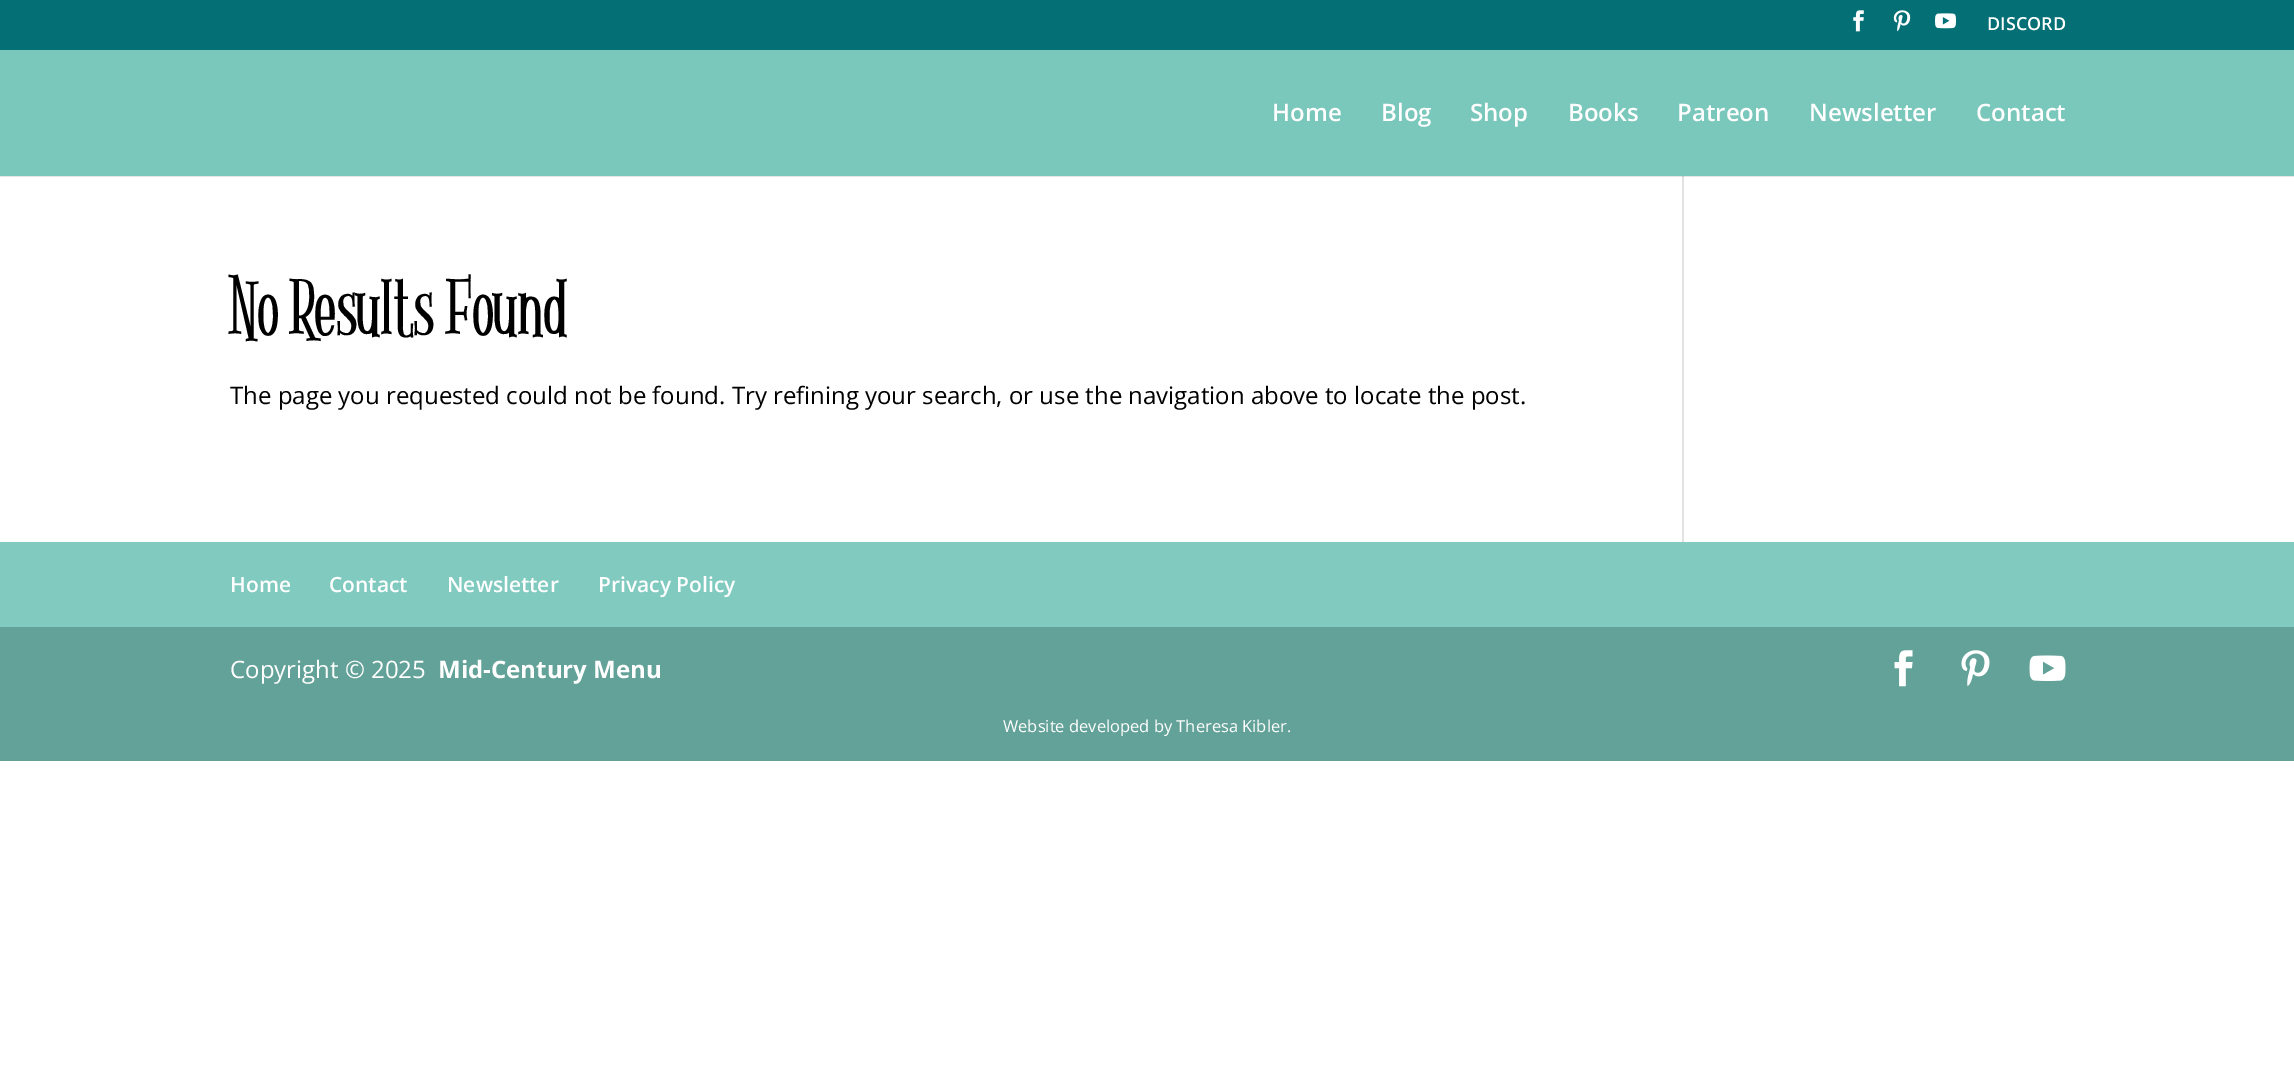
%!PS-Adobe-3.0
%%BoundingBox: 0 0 2294 1071
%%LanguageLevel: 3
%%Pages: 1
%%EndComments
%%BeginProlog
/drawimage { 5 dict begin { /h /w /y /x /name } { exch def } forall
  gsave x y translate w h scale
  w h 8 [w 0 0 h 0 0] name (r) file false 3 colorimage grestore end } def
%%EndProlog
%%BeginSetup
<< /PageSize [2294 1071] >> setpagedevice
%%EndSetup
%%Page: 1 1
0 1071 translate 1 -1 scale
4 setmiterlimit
1 setgray
0 0 2294 1071 rectfill
0.902 setgray
0 176 2294 1 rectfill
0.016 0.439 0.463 setrgbcolor
0 0 2294 50 rectfill
(images/1.raw) 1853 10 11 22 drawimage
(images/2.raw) 1893 10 18 22 drawimage
(images/3.raw) 1935 13 21 16 drawimage
0.478 0.78 0.737 setrgbcolor
0 50 2294 126 rectfill
0.886 setgray
1682 176 2 366 rectfill
0.796 setgray
1682 176 2 1 rectfill
0.506 0.792 0.749 setrgbcolor
0 542 2294 85 rectfill
0.388 0.635 0.596 setrgbcolor
0 627 2294 134 rectfill
(images/4.raw) 1894 650 19 37 drawimage
(images/5.raw) 1961 650 29 37 drawimage
(images/6.raw) 2029 655 37 27 drawimage
/OpenSans-SemiBold [18 0 0 -18 0 0] selectfont
1 setgray
1987 30 moveto (DISCORD) show
/OpenSans-SemiBold [24 0 0 -24 0 0] selectfont
1272 121 moveto (Home) show
1381 121 moveto (Blog) show
1470 121 moveto (Shop) show
1568 121 moveto (Books) show
1677 121 moveto (Patreon) show
1809 121 moveto (Newsletter) show
1976 121 moveto (Contact) show
/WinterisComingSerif-Medium [90 0 0 -90 0 0] selectfont
0 setgray
230 334 moveto (No Results Found) show
/OpenSans-Regular [24 0 0 -24 0 0] selectfont
230 404 moveto (The page you requested could not be found. Try refining your search, or use the navigation above to locate the post.) show
/OpenSans-SemiBold [21 0 0 -21 0 0] selectfont
1 setgray
230 592 moveto (Home) show
329 592 moveto (Contact) show
447 592 moveto (Newsletter) show
598 592 moveto (Privacy Policy) show
/OpenSans-Regular [24 0 0 -24 0 0] selectfont
230 678 moveto (Copyright © 2025) show
/OpenSans-Bold [24 0 0 -24 0 0] selectfont
438 678 moveto (Mid-Century Menu) show
/OpenSans-Regular [16.5 0 0 -16.5 0 0] selectfont
1003 732 moveto (Website developed by Theresa Kibler.) show
showpage
%%EOF
